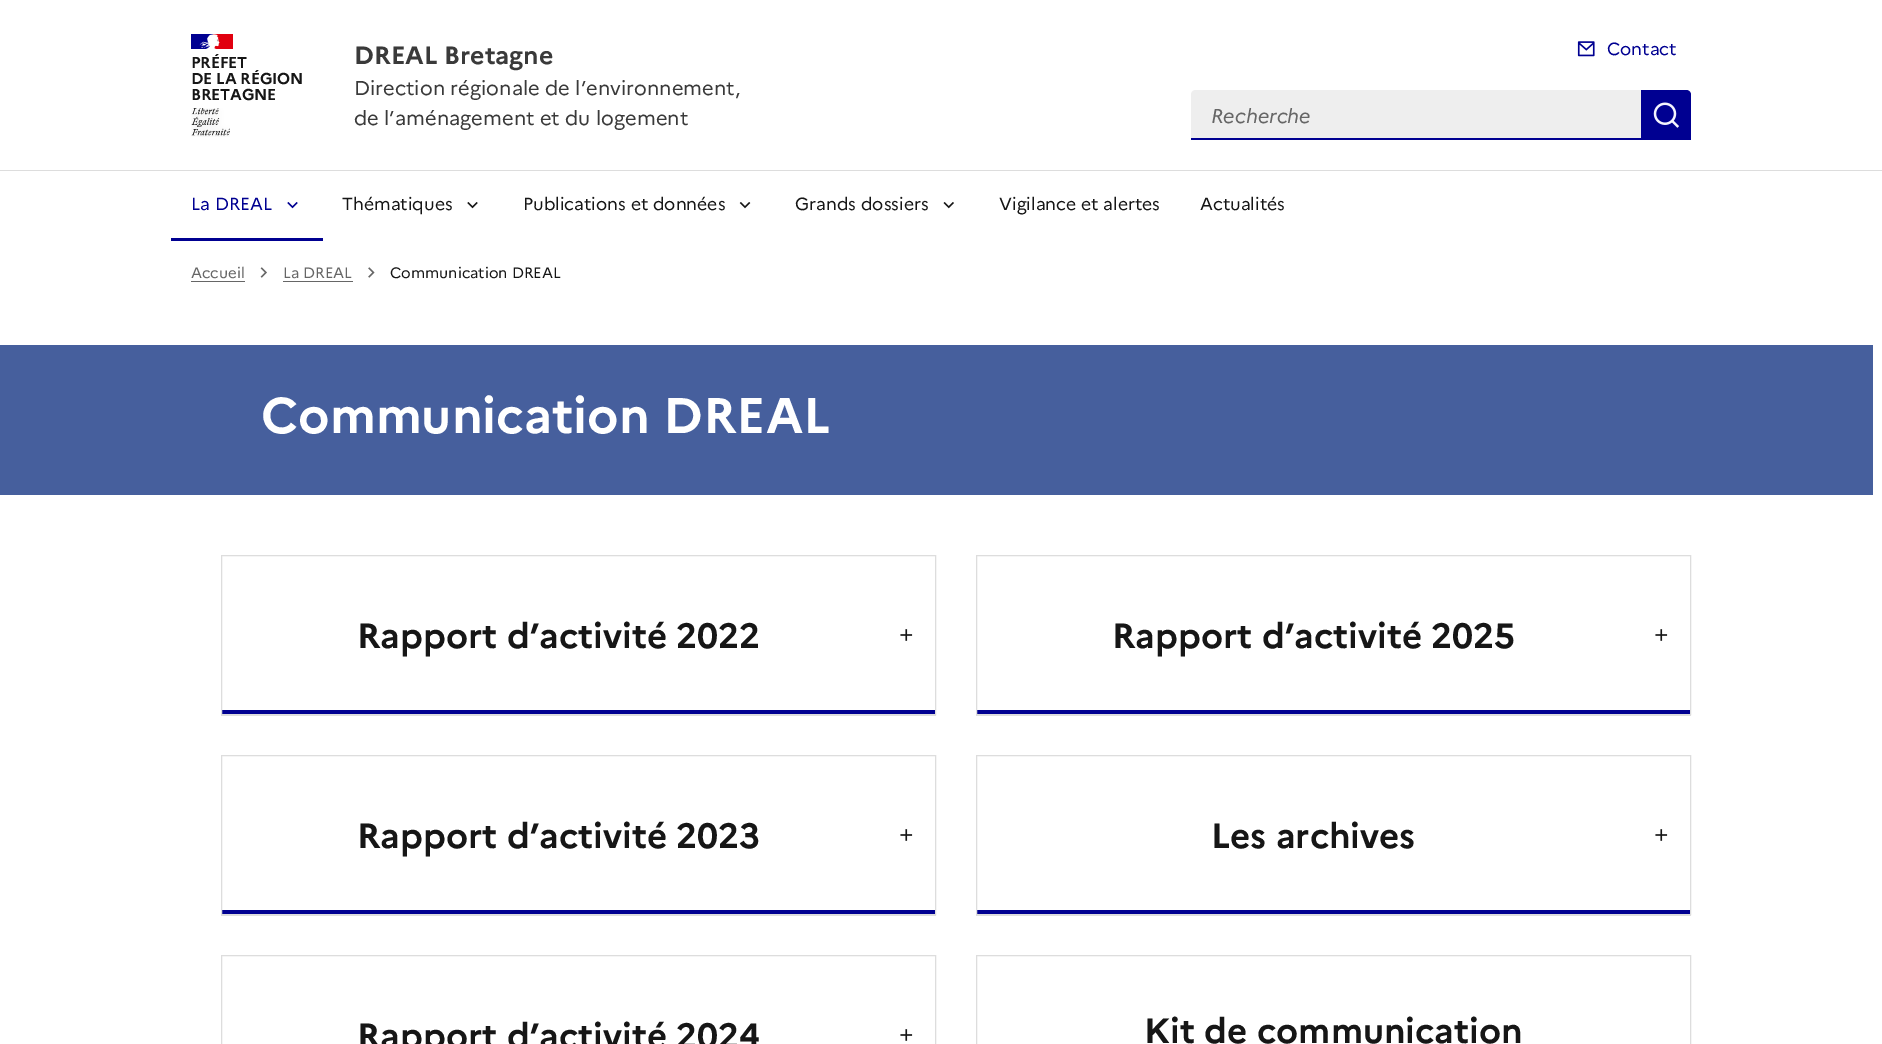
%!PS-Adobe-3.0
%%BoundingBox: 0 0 1882 1044
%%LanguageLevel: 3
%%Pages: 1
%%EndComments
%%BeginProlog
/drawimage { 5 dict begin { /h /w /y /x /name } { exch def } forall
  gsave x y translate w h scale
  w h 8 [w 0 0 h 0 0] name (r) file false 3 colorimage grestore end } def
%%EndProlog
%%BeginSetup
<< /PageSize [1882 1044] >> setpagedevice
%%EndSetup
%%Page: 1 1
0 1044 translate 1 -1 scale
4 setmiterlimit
1 setgray
0 0 1882 1044 rectfill
0 0 0.569 setrgbcolor
191 34 22 15 rectfill
0.882 0 0.059 setrgbcolor
213 34 20 15 rectfill
(images/1.raw) 199 34 21 15 drawimage
(images/2.raw) 191 108 39 29 drawimage
(images/3.raw) 1577 41 18 16 drawimage
0.933 setgray
newpath 1196 90 moveto 1641 90 lineto 1641 140 lineto 1191 140 lineto 1191 95 lineto 1191 92 1193 90 1196 90 curveto closepath fill
0 0 0.569 setrgbcolor
1191 138 450 2 rectfill
newpath 1641 90 moveto 1686 90 lineto 1689 90 1691 92 1691 95 curveto 1691 140 lineto 1641 140 lineto closepath fill
(images/4.raw) 1653 102 26 26 drawimage
0.867 setgray
0 170 1882 1 rectfill
(images/5.raw) 287 202 11 7 drawimage
0 0 0.569 setrgbcolor
171 238 152 3 rectfill
(images/6.raw) 467 202 11 7 drawimage
(images/7.raw) 739 202 12 7 drawimage
(images/8.raw) 943 202 11 7 drawimage
0.4 setgray
191 281 54 1 rectfill
(images/9.raw) 260 267 7 11 drawimage
283 281 70 1 rectfill
(images/10.raw) 368 267 7 11 drawimage
0.275 0.373 0.616 setrgbcolor
0 345 1873 150 rectfill
0 0 0.569 setrgbcolor
221 710 715 4 rectfill
0.867 setgray
221.5 555.5 714 159 rectstroke
(images/11.raw) 900 629 13 12 drawimage
newpath 221 556 moveto 221 716 lineto 936 716 lineto 936 715 lineto 221 715 lineto closepath fill
0 0 0.569 setrgbcolor
976 710 715 4 rectfill
0.867 setgray
976.5 555.5 714 159 rectstroke
(images/11.raw) 1655 629 13 12 drawimage
newpath 976 556 moveto 976 716 lineto 1691 716 lineto 1691 715 lineto 976 715 lineto closepath fill
0 0 0.569 setrgbcolor
221 910 715 4 rectfill
0.867 setgray
221.5 755.5 714 159 rectstroke
(images/11.raw) 900 829 13 12 drawimage
newpath 221 756 moveto 221 916 lineto 936 916 lineto 936 915 lineto 221 915 lineto closepath fill
0 0 0.569 setrgbcolor
976 910 715 4 rectfill
0.867 setgray
976.5 755.5 714 159 rectstroke
(images/11.raw) 1655 829 13 12 drawimage
newpath 976 756 moveto 976 916 lineto 1691 916 lineto 1691 915 lineto 976 915 lineto closepath fill
221.5 955.5 714 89 rectstroke
(images/11.raw) 900 1029 13 12 drawimage
976.5 955.5 714 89 rectstroke
/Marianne-Bold [15.75 0 0 -15.75 0 0] selectfont
0.086 setgray
191 68 moveto -0.2 0 (PRÉFET) ashow
191 84 moveto -0.2 0 (DE LA RÉGION) ashow
191 100 moveto -0.2 0 (BRETAGNE) ashow
/Marianne-Bold [25 0 0 -25 0 0] selectfont
0.227 setgray
354 64 moveto (DREAL Bretagne) show
/Marianne-Regular [20 0 0 -20 0 0] selectfont
354 95 moveto (Direction régionale de l’environnement,) show
354 125 moveto (de l’aménagement et du logement) show
/Marianne-Regular [17.5 0 0 -17.5 0 0] selectfont
0 0 0.569 setrgbcolor
1607 55 moveto (Contact) show
/Marianne-Italic [20 0 0 -20 0 0] selectfont
0.4 setgray
1211 123 moveto (Recherche) show
/Marianne-Regular [17.5 0 0 -17.5 0 0] selectfont
0 0 0.569 setrgbcolor
191 210 moveto (La DREAL) show
0.086 setgray
342 210 moveto (Thématiques) show
523 210 moveto (Publications et données) show
795 210 moveto (Grands dossiers) show
999 210 moveto (Vigilance et alertes) show
1200 210 moveto (Actualités) show
/Marianne-Regular [15 0 0 -15 0 0] selectfont
0.4 setgray
191 278 moveto (Accueil) show
283 278 moveto (La DREAL) show
0.086 setgray
390 278 moveto (Communication DREAL) show
/Marianne-Bold [50 0 0 -50 0 0] selectfont
1 setgray
261 433 moveto (Communication DREAL) show
/Marianne-Bold [35 0 0 -35 0 0] selectfont
0.086 setgray
357 648 moveto (Rapport d’activité 2022) show
1112 648 moveto (Rapport d’activité 2025) show
357 848 moveto (Rapport d’activité 2023) show
1211 848 moveto (Les archives) show
357 1048 moveto (Rapport d’activité 2024) show
1144 1043 moveto (Kit de communication) show
showpage
%%EOF
